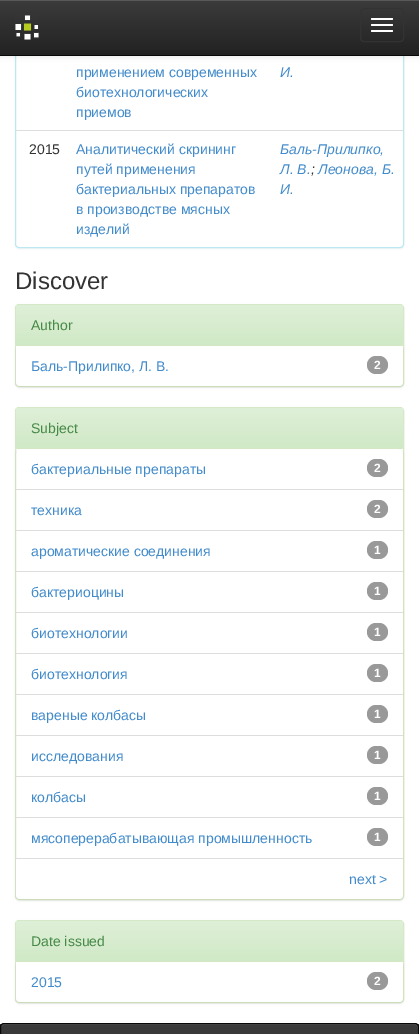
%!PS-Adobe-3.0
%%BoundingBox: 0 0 419 1034
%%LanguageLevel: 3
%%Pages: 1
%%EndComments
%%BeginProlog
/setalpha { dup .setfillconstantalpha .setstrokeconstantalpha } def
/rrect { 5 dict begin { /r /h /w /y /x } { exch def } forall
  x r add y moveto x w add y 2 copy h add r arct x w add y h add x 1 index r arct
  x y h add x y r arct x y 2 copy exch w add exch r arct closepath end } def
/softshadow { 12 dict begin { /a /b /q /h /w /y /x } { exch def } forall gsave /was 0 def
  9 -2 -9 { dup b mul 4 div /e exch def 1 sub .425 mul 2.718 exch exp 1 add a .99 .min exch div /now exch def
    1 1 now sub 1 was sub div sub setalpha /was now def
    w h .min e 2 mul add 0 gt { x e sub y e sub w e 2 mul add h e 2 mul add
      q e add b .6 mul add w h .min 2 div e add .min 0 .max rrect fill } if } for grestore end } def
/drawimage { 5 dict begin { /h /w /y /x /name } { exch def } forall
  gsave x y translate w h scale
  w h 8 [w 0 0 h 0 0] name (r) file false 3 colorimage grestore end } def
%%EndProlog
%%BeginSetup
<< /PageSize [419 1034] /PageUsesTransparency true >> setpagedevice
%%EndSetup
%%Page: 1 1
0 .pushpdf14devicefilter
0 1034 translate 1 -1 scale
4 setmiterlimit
1 setgray
0 0 419 1034 rectfill
0 setgray
15 -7 389 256 4 1 0.05 softshadow
1 setgray
15.5 -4.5 388 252 3.5 rrect gsave fill grestore
0.737 0.91 0.945 setrgbcolor
stroke
0 setgray
0 1 419 56 0 2.5 0.07 softshadow
gsave newpath 0 1 moveto 419 1 lineto 419 55 lineto 0 55 lineto closepath clip newpath
<< /ShadingType 2 /ColorSpace /DeviceRGB /Coords [210 0 210 55] /Extend [true true] /Function << /FunctionType 2 /Domain [0 1] /C0 [0.235 0.235 0.235] /C1 [0.133 0.133 0.133] /N 1 >> >> shfill grestore
0.349 setgray
0 0 419 1 rectfill
0.031 setgray
0 55 419 1 rectfill
(images/1.raw) 15 15 24 25 drawimage
0.2 setgray
360.5 8.5 43 33 3.5 rrect stroke
1 setgray
371 18 22 2 1 rrect fill
371 24 22 2 1 rrect fill
371 30 22 2 1 rrect fill
0.867 setgray
16 130 388 1 rectfill
0 setgray
15 305 389 83 4 1 0.05 softshadow
1 setgray
15.5 304.5 388 82 3.5 rrect gsave fill grestore
0.839 0.914 0.776 setrgbcolor
stroke
gsave newpath 19 305 moveto 400 305 lineto 401.5 305 403 306.5 403 308 curveto 403 345 lineto 16 345 lineto 16 308 lineto 16 306.5 17.5 305 19 305 curveto closepath clip newpath
<< /ShadingType 2 /ColorSpace /DeviceRGB /Coords [210 305 210 345] /Extend [true true] /Function << /FunctionType 2 /Domain [0 1] /C0 [0.875 0.941 0.847] /C1 [0.816 0.914 0.776] /N 1 >> >> shfill grestore
16 345 387 1 rectfill
0 setgray
16 347 387 40 4 1 0.07 softshadow
1 setgray
newpath 16 346 moveto 403 346 lineto 403 382 lineto 403 384 401 386 399 386 curveto 20 386 lineto 18 386 16 384 16 382 curveto closepath fill
0.6 setgray
367 356 21 18 9 rrect fill
0 setgray
15 408 389 493 4 1 0.05 softshadow
1 setgray
15.5 407.5 388 492 3.5 rrect gsave fill grestore
0.839 0.914 0.776 setrgbcolor
stroke
gsave newpath 19 408 moveto 400 408 lineto 401.5 408 403 409.5 403 411 curveto 403 448 lineto 16 448 lineto 16 411 lineto 16 409.5 17.5 408 19 408 curveto closepath clip newpath
<< /ShadingType 2 /ColorSpace /DeviceRGB /Coords [210 408 210 448] /Extend [true true] /Function << /FunctionType 2 /Domain [0 1] /C0 [0.875 0.941 0.847] /C1 [0.816 0.914 0.776] /N 1 >> >> shfill grestore
16 448 387 1 rectfill
gsave
newpath 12 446 moveto 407 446 lineto 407 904 lineto 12 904 lineto closepath 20 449 moveto 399 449 lineto 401 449 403 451 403 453 curveto 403 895 lineto 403 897 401 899 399 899 curveto 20 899 lineto 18 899 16 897 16 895 curveto 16 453 lineto 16 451 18 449 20 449 curveto closepath eoclip newpath
0 setgray
16 450 387 450 4 1 0.07 softshadow
grestore
0.867 setgray
16 489 387 1 rectfill
0.6 setgray
367 459 21 18 9 rrect fill
0.867 setgray
16 530 387 1 rectfill
0.6 setgray
367 500 21 18 9 rrect fill
0.867 setgray
16 571 387 1 rectfill
0.6 setgray
367 541 21 18 9 rrect fill
0.867 setgray
16 612 387 1 rectfill
0.6 setgray
367 582 21 18 9 rrect fill
0.867 setgray
16 653 387 1 rectfill
0.6 setgray
367 623 21 18 9 rrect fill
0.867 setgray
16 694 387 1 rectfill
0.6 setgray
367 664 21 18 9 rrect fill
0.867 setgray
16 735 387 1 rectfill
0.6 setgray
367 705 21 18 9 rrect fill
0.867 setgray
16 776 387 1 rectfill
0.6 setgray
367 746 21 18 9 rrect fill
0.867 setgray
16 817 387 1 rectfill
0.6 setgray
367 787 21 18 9 rrect fill
367 828 21 18 9 rrect fill
1 setgray
newpath 16 858 moveto 403 858 lineto 403 895 lineto 403 897 401 899 399 899 curveto 20 899 lineto 18 899 16 897 16 895 curveto closepath fill
0.867 setgray
16 858 387 1 rectfill
0 setgray
15 921 389 83 4 1 0.05 softshadow
1 setgray
15.5 920.5 388 82 3.5 rrect gsave fill grestore
0.839 0.914 0.776 setrgbcolor
stroke
gsave newpath 19 921 moveto 400 921 lineto 401.5 921 403 922.5 403 924 curveto 403 961 lineto 16 961 lineto 16 924 lineto 16 922.5 17.5 921 19 921 curveto closepath clip newpath
<< /ShadingType 2 /ColorSpace /DeviceRGB /Coords [210 921 210 961] /Extend [true true] /Function << /FunctionType 2 /Domain [0 1] /C0 [0.875 0.941 0.847] /C1 [0.816 0.914 0.776] /N 1 >> >> shfill grestore
16 961 387 1 rectfill
0 setgray
16 963 387 40 4 1 0.07 softshadow
1 setgray
newpath 16 962 moveto 403 962 lineto 403 998 lineto 403 1000 401 1002 399 1002 curveto 20 1002 lineto 18 1002 16 1000 16 998 curveto closepath fill
0.6 setgray
367 972 21 18 9 rrect fill
gsave
0 1023 419 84 4 rrect clip newpath
gsave newpath 0 1024 moveto 419 1024 lineto 419 1034 lineto 0 1034 lineto closepath clip newpath
<< /ShadingType 2 /ColorSpace /DeviceRGB /Coords [210 1024 210 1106] /Extend [true true] /Function << /FunctionType 2 /Domain [0 1] /C0 [0.235 0.235 0.235] /C1 [0.133 0.133 0.133] /N 1 >> >> shfill grestore
grestore
0.349 setgray
newpath 4 1025 moveto 415 1025 lineto 417 1025 418 1026 418 1028 curveto 418 1026 417 1024 415 1024 curveto 4 1024 lineto 2 1024 1 1026 1 1028 curveto 1 1026 2 1025 4 1025 curveto closepath fill
0.031 setgray
0.5 1023.5 418 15 3.5 rrect stroke
/LiberationSans-Regular [14 0 0 -14 0 0] selectfont
0.259 0.545 0.792 setrgbcolor
76 77 moveto (применением современных) show
76 97 moveto (биотехнологических) show
76 117 moveto (приемов) show
/LiberationSans-Italic [14 0 0 -14 0 0] selectfont
280 77 moveto (И.) show
/LiberationSans-Regular [14 0 0 -14 0 0] selectfont
0.2 setgray
29 154 moveto (2015) show
0.259 0.545 0.792 setrgbcolor
76 154 moveto (Аналитический скрининг) show
76 174 moveto (путей применения) show
76 194 moveto (бактериальных препаратов) show
76 214 moveto (в производстве мясных) show
76 234 moveto (изделий) show
/LiberationSans-Italic [14 0 0 -14 0 0] selectfont
280 154 moveto (Баль-Прилипко,) show
280 174 moveto (Л. В.) show
0.2 setgray
311 174 moveto (;) show
0.259 0.545 0.792 setrgbcolor
318 174 moveto (Леонова, Б.) show
280 194 moveto (И.) show
/LiberationSans-Regular [24 0 0 -24 0 0] selectfont
0.2 setgray
15 289 moveto (Discover) show
/LiberationSans-Regular [14 0 0 -14 0 0] selectfont
0.275 0.533 0.278 setrgbcolor
31 330 moveto (Author) show
0.259 0.545 0.792 setrgbcolor
31 371 moveto (Баль-Прилипко, Л. В.) show
/LiberationSans-Bold [12 0 0 -12 0 0] selectfont
1 setgray
374 369 moveto (2) show
/LiberationSans-Regular [14 0 0 -14 0 0] selectfont
0.275 0.533 0.278 setrgbcolor
31 433 moveto (Subject) show
0.259 0.545 0.792 setrgbcolor
31 474 moveto (бактериальные препараты) show
/LiberationSans-Bold [12 0 0 -12 0 0] selectfont
1 setgray
374 472 moveto (2) show
/LiberationSans-Regular [14 0 0 -14 0 0] selectfont
0.259 0.545 0.792 setrgbcolor
31 515 moveto (техника) show
/LiberationSans-Bold [12 0 0 -12 0 0] selectfont
1 setgray
374 513 moveto (2) show
/LiberationSans-Regular [14 0 0 -14 0 0] selectfont
0.259 0.545 0.792 setrgbcolor
31 556 moveto (ароматические соединения) show
/LiberationSans-Bold [12 0 0 -12 0 0] selectfont
1 setgray
374 554 moveto (1) show
/LiberationSans-Regular [14 0 0 -14 0 0] selectfont
0.259 0.545 0.792 setrgbcolor
31 597 moveto (бактериоцины) show
/LiberationSans-Bold [12 0 0 -12 0 0] selectfont
1 setgray
374 595 moveto (1) show
/LiberationSans-Regular [14 0 0 -14 0 0] selectfont
0.259 0.545 0.792 setrgbcolor
31 638 moveto (биотехнологии) show
/LiberationSans-Bold [12 0 0 -12 0 0] selectfont
1 setgray
374 636 moveto (1) show
/LiberationSans-Regular [14 0 0 -14 0 0] selectfont
0.259 0.545 0.792 setrgbcolor
31 679 moveto (биотехнология) show
/LiberationSans-Bold [12 0 0 -12 0 0] selectfont
1 setgray
374 677 moveto (1) show
/LiberationSans-Regular [14 0 0 -14 0 0] selectfont
0.259 0.545 0.792 setrgbcolor
31 720 moveto (вареные колбасы) show
/LiberationSans-Bold [12 0 0 -12 0 0] selectfont
1 setgray
374 718 moveto (1) show
/LiberationSans-Regular [14 0 0 -14 0 0] selectfont
0.259 0.545 0.792 setrgbcolor
31 761 moveto (исследования) show
/LiberationSans-Bold [12 0 0 -12 0 0] selectfont
1 setgray
374 759 moveto (1) show
/LiberationSans-Regular [14 0 0 -14 0 0] selectfont
0.259 0.545 0.792 setrgbcolor
31 802 moveto (колбасы) show
/LiberationSans-Bold [12 0 0 -12 0 0] selectfont
1 setgray
374 800 moveto (1) show
/LiberationSans-Regular [14 0 0 -14 0 0] selectfont
0.259 0.545 0.792 setrgbcolor
31 843 moveto (мясоперерабатывающая промышленность) show
/LiberationSans-Bold [12 0 0 -12 0 0] selectfont
1 setgray
374 841 moveto (1) show
/LiberationSans-Regular [14 0 0 -14 0 0] selectfont
0.259 0.545 0.792 setrgbcolor
349 884 moveto (next >) show
0.275 0.533 0.278 setrgbcolor
31 946 moveto (Date issued) show
0.259 0.545 0.792 setrgbcolor
31 987 moveto (2015) show
/LiberationSans-Bold [12 0 0 -12 0 0] selectfont
1 setgray
374 985 moveto (2) show
.poppdf14devicefilter showpage
%%EOF
